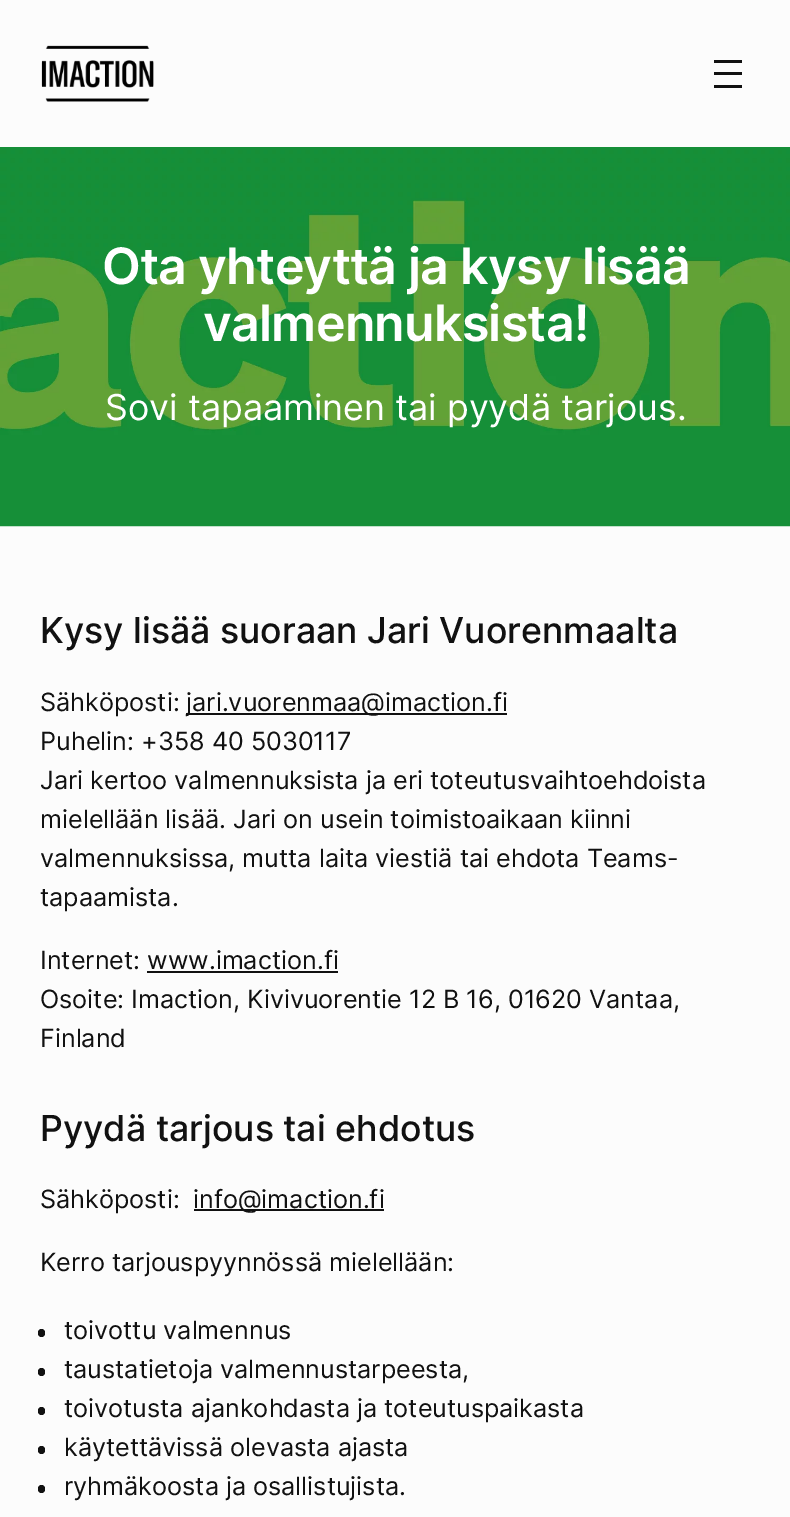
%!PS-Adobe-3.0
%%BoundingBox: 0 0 790 1517
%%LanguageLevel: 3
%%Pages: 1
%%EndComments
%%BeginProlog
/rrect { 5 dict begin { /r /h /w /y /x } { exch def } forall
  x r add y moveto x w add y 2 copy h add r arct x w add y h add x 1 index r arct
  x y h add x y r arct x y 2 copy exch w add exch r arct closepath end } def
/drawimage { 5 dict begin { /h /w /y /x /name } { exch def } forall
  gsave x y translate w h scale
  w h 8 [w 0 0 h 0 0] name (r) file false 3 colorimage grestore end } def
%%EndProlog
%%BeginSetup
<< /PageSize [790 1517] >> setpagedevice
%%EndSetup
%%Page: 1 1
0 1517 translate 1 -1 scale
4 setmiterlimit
0.988 setgray
0 0 790 1517 rectfill
(images/1.raw) 41 45 113 57 drawimage
0.067 setgray
714 60 28 3 rectfill
714 72 28 3 rectfill
714 85 28 3 rectfill
(images/2.raw) 0 147 790 380 drawimage
186 713 321 2 rectfill
147 971 191 2 rectfill
194 1209 190 2 rectfill
38 1329 7 8 3.5 rrect fill
38 1368 7 8 3.5 rrect fill
38 1407 7 8 3.5 rrect fill
38 1446 7 8 3.5 rrect fill
38 1485 7 8 3.5 rrect fill
/Inter-SemiBold [50.1 0 0 -50.1 0 0] selectfont
1 setgray
102 284 moveto -0.75 0 (Ota yhteyttä ja kysy lisää) ashow
203 341 moveto -0.75 0 (valmennuksista!) ashow
/Inter-Regular [35.75 0 0 -35.75 0 0] selectfont
105 420 moveto (Sovi tapaaminen tai pyydä tarjous.) show
/Inter-Medium [35.75 0 0 -35.75 0 0] selectfont
0.067 setgray
40 643 moveto (Kysy lisää suoraan Jari Vuorenmaalta) show
/Inter-Regular [25.2 0 0 -25.2 0 0] selectfont
40 711 moveto (Sähköposti:) show
186 711 moveto (jari.vuorenmaa@imaction.fi) show
40 750 moveto (Puhelin: +358 40 5030117) show
40 789 moveto (Jari kertoo valmennuksista ja eri toteutusvaihtoehdoista) show
40 828 moveto (mielellään lisää. Jari on usein toimistoaikaan kiinni) show
40 867 moveto (valmennuksissa, mutta laita viestiä tai ehdota Teams-) show
40 906 moveto (tapaamista.) show
40 969 moveto (Internet: www.imaction.fi) show
40 1008 moveto (Osoite: Imaction, Kivivuorentie 12 B 16, 01620 Vantaa,) show
40 1047 moveto (Finland) show
/Inter-Medium [35.75 0 0 -35.75 0 0] selectfont
40 1141 moveto (Pyydä tarjous tai ehdotus) show
/Inter-Regular [25.2 0 0 -25.2 0 0] selectfont
40 1208 moveto (Sähköposti:) show
193 1208 moveto (info@imaction.fi) show
40 1271 moveto (Kerro tarjouspyynnössä mielellään:) show
64 1339 moveto (toivottu valmennus) show
64 1378 moveto (taustatietoja valmennustarpeesta,) show
64 1417 moveto (toivotusta ajankohdasta ja toteutuspaikasta) show
64 1456 moveto (käytettävissä olevasta ajasta) show
64 1495 moveto (ryhmäkoosta ja osallistujista.) show
showpage
%%EOF
